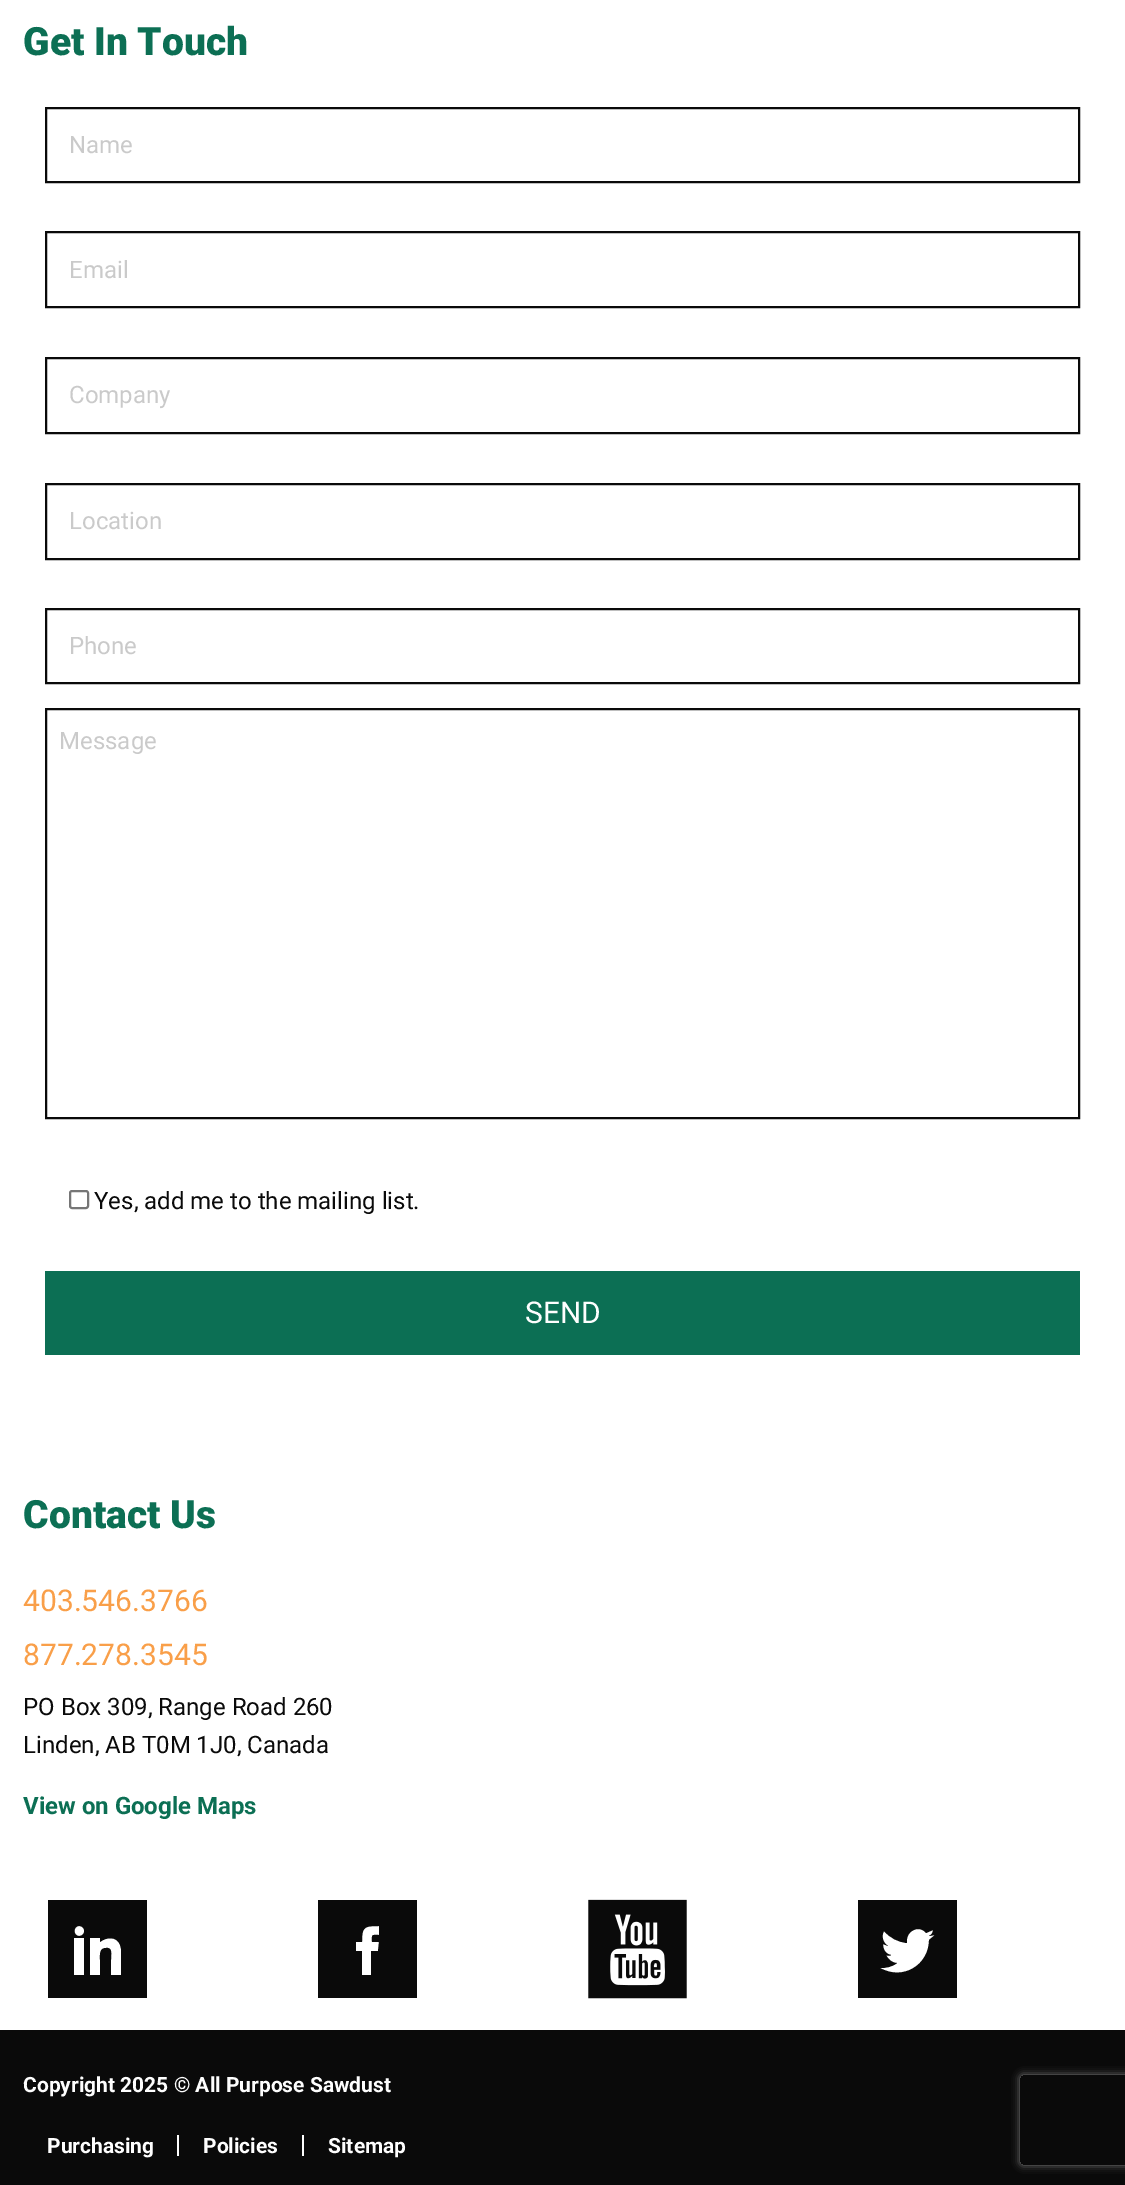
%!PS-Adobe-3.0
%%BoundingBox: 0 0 1125 2185
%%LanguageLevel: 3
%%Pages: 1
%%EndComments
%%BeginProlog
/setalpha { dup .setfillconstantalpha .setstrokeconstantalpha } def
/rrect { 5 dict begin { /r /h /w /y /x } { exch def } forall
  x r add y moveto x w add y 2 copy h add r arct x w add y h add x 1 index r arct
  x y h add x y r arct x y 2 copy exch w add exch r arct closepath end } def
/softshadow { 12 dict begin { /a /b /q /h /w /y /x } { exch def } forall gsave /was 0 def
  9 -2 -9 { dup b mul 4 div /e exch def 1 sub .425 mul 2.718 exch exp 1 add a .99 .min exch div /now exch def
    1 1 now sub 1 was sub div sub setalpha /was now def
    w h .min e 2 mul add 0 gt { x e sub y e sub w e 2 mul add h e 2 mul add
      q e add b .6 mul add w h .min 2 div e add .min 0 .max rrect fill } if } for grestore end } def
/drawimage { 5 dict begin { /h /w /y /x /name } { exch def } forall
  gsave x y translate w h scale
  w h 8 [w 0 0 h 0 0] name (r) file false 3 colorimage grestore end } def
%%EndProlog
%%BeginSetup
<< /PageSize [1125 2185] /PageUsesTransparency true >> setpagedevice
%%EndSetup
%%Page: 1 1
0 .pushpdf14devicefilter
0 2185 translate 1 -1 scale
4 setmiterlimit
1 setgray
0 0 1125 2185 rectfill
0.039 setgray
2 setlinewidth
46 108 1033 74 rectstroke
46 232 1033 75 rectstroke
46 358 1033 75 rectstroke
46 484 1033 75 rectstroke
46 609 1033 74 rectstroke
46 709 1033 409 rectstroke
0.463 setgray
70 1191 18 17 2 rrect stroke
0.047 0.435 0.329 setrgbcolor
45 1271 1035 84 rectfill
0.039 setgray
newpath 48 1900 moveto 48 1998 lineto 147 1998 lineto 147 1900 lineto closepath 84 1975 moveto 74 1975 lineto 74 1938 lineto 84 1938 lineto closepath 79 1936 moveto 73 1936 73 1926 79 1926 curveto 86 1926 86 1936 79 1936 curveto closepath 121 1975 moveto 111 1975 lineto 111 1960 lineto 111 1955 113 1947 106 1948 curveto 99 1948 100 1955 100 1960 curveto 100 1975 lineto 90 1975 lineto 90 1938 lineto 100 1938 lineto 100 1942 lineto 106 1937 117 1936 120 1945 curveto 122 1950 121 1955 121 1960 curveto closepath fill
newpath 318 1900 moveto 318 1998 lineto 417 1998 lineto 417 1900 lineto closepath 378 1951 moveto 371 1951 lineto 371 1975 lineto 362 1975 lineto 362 1951 lineto 356 1951 lineto 356 1942 lineto 362 1942 lineto 362 1927 364 1926 379 1926 curveto 379 1935 lineto 371 1935 372 1934 372 1942 curveto 379 1942 lineto closepath fill
(images/1.raw) 588 1899 99 100 drawimage
newpath 858 1900 moveto 858 1998 lineto 957 1998 lineto 957 1900 lineto closepath 929 1940 moveto 929 1965 903 1981 880 1968 curveto 886 1968 892 1967 897 1963 curveto 892 1963 888 1959 886 1955 curveto 888 1956 890 1956 891 1955 curveto 886 1954 883 1950 883 1944 curveto 888 1946 lineto 883 1943 881 1936 884 1931 curveto 890 1938 898 1942 907 1943 curveto 907 1939 lineto 908 1930 920 1925 926 1933 curveto 933 1930 lineto 933 1933 931 1935 929 1936 curveto 935 1935 lineto closepath fill
0 2030 1125 155 rectfill
0.996 setgray
177 2135 2 21 rectfill
302 2135 2 21 rectfill
gsave
newpath 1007 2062 moveto 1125 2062 lineto 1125 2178 lineto 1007 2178 lineto closepath 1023 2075 moveto 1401 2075 lineto 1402.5 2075 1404 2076.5 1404 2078 curveto 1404 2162 lineto 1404 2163.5 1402.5 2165 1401 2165 curveto 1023 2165 lineto 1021.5 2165 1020 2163.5 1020 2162 curveto 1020 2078 lineto 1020 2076.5 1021.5 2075 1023 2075 curveto closepath eoclip newpath
0.502 setgray
1020 2075 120 90 3 4 1 softshadow
grestore
/Roboto-Black [39 0 0 -39 0 0] selectfont
0.047 0.435 0.329 setrgbcolor
23 55 moveto (Get In Touch) show
/Roboto-Regular [24 0 0 -24 0 0] selectfont
0.792 setgray
69 153 moveto (Name) show
69 278 moveto (Email) show
69 403 moveto (Company) show
69 529 moveto (Location) show
69 654 moveto (Phone) show
59 749 moveto (Message) show
0.039 setgray
94 1209 moveto (Yes, add me to the mailing list.) show
/Roboto-Regular [30 0 0 -30 0 0] selectfont
0.996 setgray
525 1323 moveto (SEND) show
/Roboto-Black [39 0 0 -39 0 0] selectfont
0.047 0.435 0.329 setrgbcolor
23 1528 moveto (Contact Us) show
/Roboto-Regular [30 0 0 -30 0 0] selectfont
0.976 0.624 0.286 setrgbcolor
23 1611 moveto (403.546.3766) show
23 1665 moveto (877.278.3545) show
/Roboto-Regular [24 0 0 -24 0 0] selectfont
0.039 setgray
23 1715 moveto (PO Box 309, Range Road 260) show
23 1753 moveto (Linden, AB T0M 1J0, Canada) show
/Roboto-Bold [24 0 0 -24 0 0] selectfont
0.047 0.435 0.329 setrgbcolor
23 1814 moveto (View on Google Maps) show
/Roboto-Bold [21 0 0 -21 0 0] selectfont
0.996 setgray
23 2092 moveto (Copyright 2025 © All Purpose Sawdust) show
47 2153 moveto (Purchasing) show
203 2153 moveto (Policies) show
328 2153 moveto (Sitemap) show
.poppdf14devicefilter showpage
%%EOF
